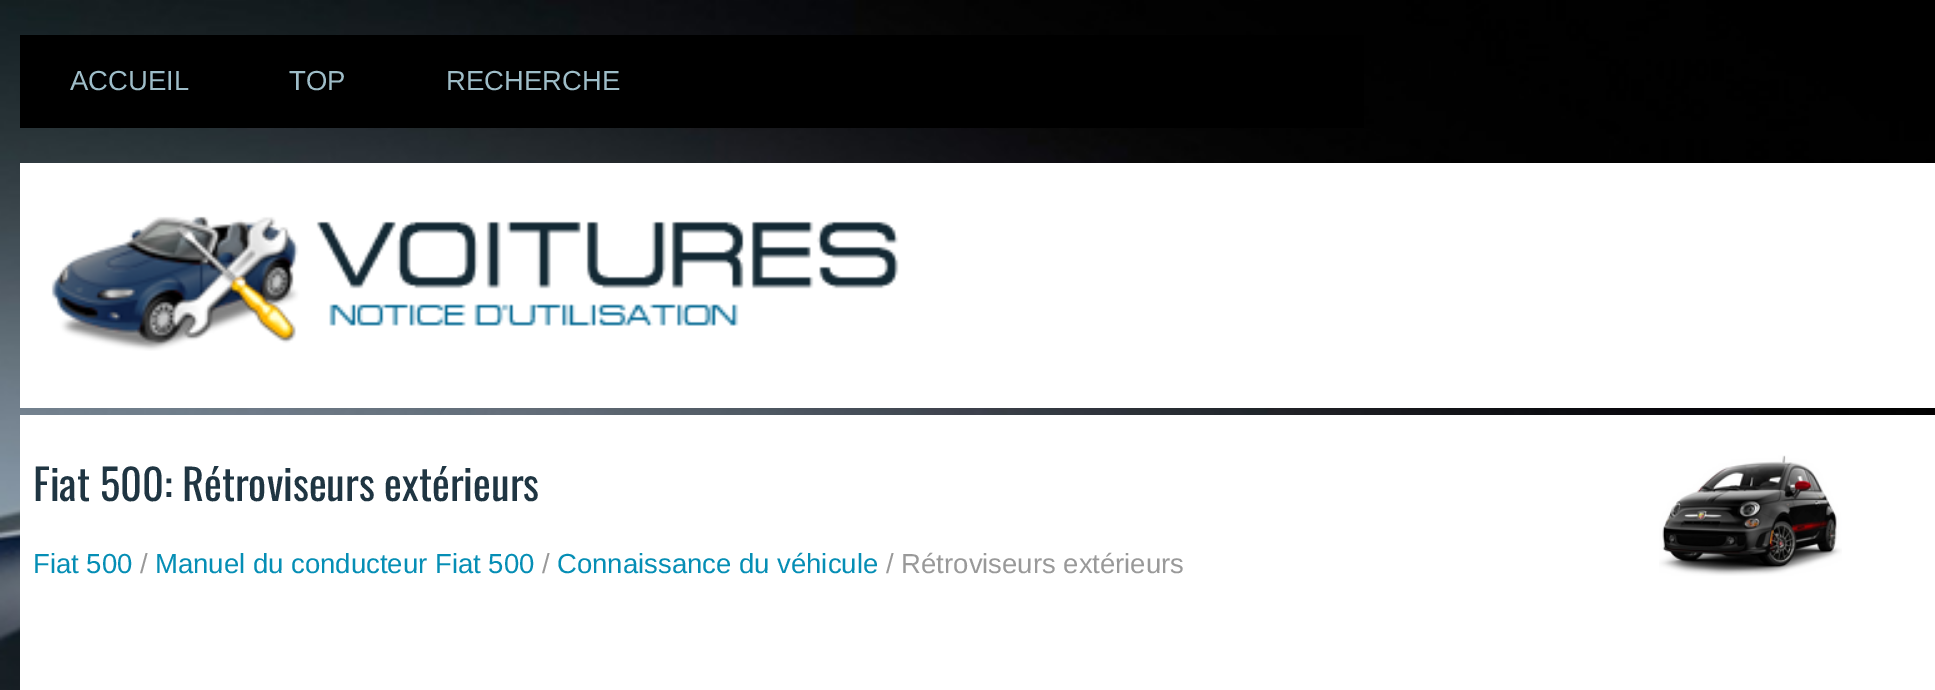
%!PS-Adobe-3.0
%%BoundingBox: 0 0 1935 690
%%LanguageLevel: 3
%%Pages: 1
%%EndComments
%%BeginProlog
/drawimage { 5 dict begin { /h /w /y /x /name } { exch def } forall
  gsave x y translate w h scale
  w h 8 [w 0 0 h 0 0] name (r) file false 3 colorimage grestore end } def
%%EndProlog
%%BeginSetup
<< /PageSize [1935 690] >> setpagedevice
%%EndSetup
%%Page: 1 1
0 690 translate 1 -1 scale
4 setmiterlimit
1 setgray
0 0 1935 690 rectfill
(images/1.raw) 0 0 1935 690 drawimage
0 setgray
20 35 1344 93 rectfill
1 setgray
20 163 1915 245 rectfill
(images/2.raw) 51 216 848 135 drawimage
20 415 1915 275 rectfill
(images/3.raw) 1659 455 183 121 drawimage
/LiberationSans-Regular [27.5 0 0 -27.5 0 0] selectfont
0.62 0.741 0.784 setrgbcolor
70 90 moveto (ACCUEIL) show
289 90 moveto (TOP) show
446 90 moveto (RECHERCHE) show
/Oswald-Regular [42.5 0 0 -42.5 0 0] selectfont
0.122 0.208 0.259 setrgbcolor
33 501 moveto (Fiat 500: Rétroviseurs extérieurs) show
/LiberationSans-Regular [27.5 0 0 -27.5 0 0] selectfont
0.02 0.557 0.71 setrgbcolor
33 573 moveto (Fiat 500) show
0.6 setgray
140 573 moveto (/) show
0.02 0.557 0.71 setrgbcolor
155 573 moveto (Manuel du conducteur Fiat 500) show
0.6 setgray
542 573 moveto (/) show
0.02 0.557 0.71 setrgbcolor
557 573 moveto (Connaissance du véhicule) show
0.6 setgray
886 573 moveto (/ Rétroviseurs extérieurs) show
showpage
%%EOF
